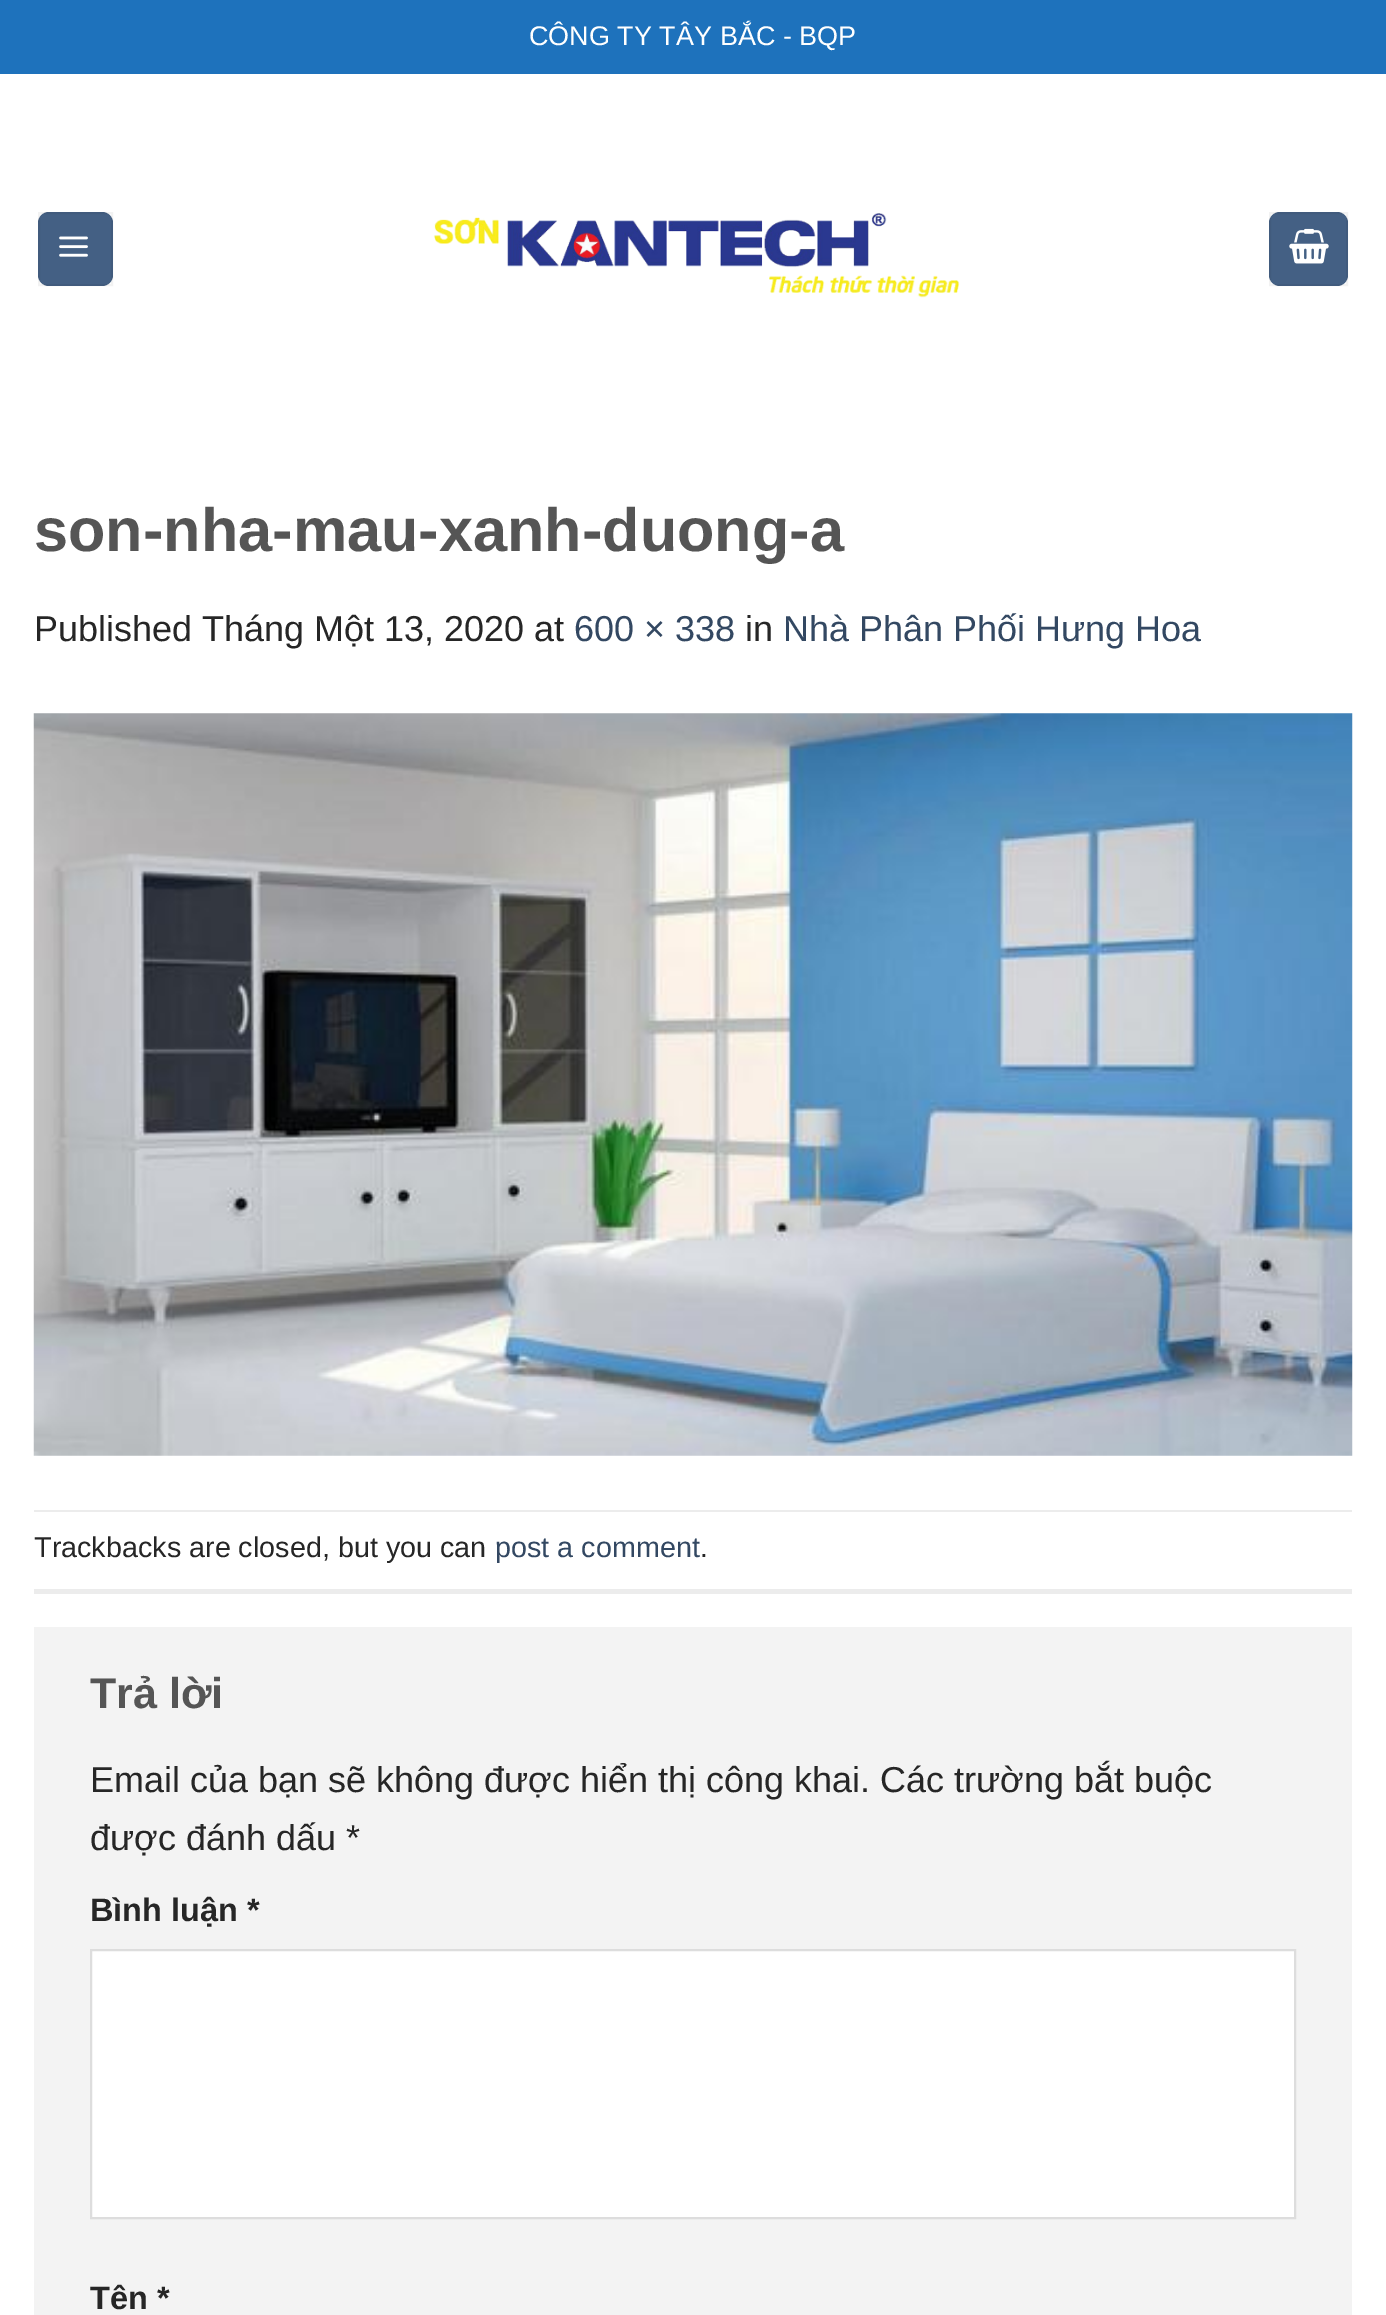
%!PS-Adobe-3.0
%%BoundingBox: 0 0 1386 2315
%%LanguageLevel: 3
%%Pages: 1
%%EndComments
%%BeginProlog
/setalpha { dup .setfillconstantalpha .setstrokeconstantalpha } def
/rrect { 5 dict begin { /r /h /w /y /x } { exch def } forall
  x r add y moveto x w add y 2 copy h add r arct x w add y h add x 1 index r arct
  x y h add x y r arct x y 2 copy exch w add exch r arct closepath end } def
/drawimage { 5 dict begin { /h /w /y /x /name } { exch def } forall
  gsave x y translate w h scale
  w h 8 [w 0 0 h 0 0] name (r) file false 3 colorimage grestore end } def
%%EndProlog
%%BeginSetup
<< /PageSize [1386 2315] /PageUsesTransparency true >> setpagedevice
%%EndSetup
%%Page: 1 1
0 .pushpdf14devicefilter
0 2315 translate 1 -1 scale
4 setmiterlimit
1 setgray
0 0 1386 2315 rectfill
0.118 0.447 0.737 setrgbcolor
0 0 1386 74 rectfill
0.267 0.376 0.518 setrgbcolor
38 212 75 74 11 rrect fill
0.05 setalpha
0 setgray
2 setlinewidth
39 213 73 72 rectstroke
1 setalpha
(images/1.raw) 59 236 29 21 drawimage
(images/2.raw) 433 213 527 85 drawimage
0.267 0.376 0.518 setrgbcolor
1269 212 79 74 11 rrect fill
0.05 setalpha
0 setgray
1270 213 77 72 rectstroke
1 setalpha
(images/3.raw) 1289 228 40 36 drawimage
(images/4.raw) 33 713 1320 743 drawimage
0.925 setgray
34 1510 1318 2 rectfill
34 1589 1318 5 rectfill
0.953 setgray
34 1627 1318 688 rectfill
1 setgray
newpath 91 1950 moveto 1295 1950 lineto 1295 2218 lineto 91 2218 lineto closepath gsave fill grestore
0.867 setgray
stroke
/LiberationSans-Regular [27 0 0 -27 0 0] selectfont
1 setgray
529 45 moveto (CÔNG TY TÂY BẮC - BQP) show
/LiberationSans-Bold [61.25 0 0 -61.25 0 0] selectfont
0.333 setgray
34 551 moveto (son-nha-mau-xanh-duong-a) show
/LiberationSans-Regular [36 0 0 -36 0 0] selectfont
0.149 setgray
34 641 moveto (Published Tháng Một 13, 2020 at) show
0.2 0.282 0.384 setrgbcolor
574 641 moveto (600 × 338) show
0.149 setgray
745 641 moveto (in) show
0.2 0.282 0.384 setrgbcolor
783 641 moveto (Nhà Phân Phối Hưng Hoa) show
/LiberationSans-Regular [28.75 0 0 -28.75 0 0] selectfont
0.149 setgray
34 1557 moveto (Trackbacks are closed, but you can) show
0.2 0.282 0.384 setrgbcolor
495 1557 moveto (post a comment) show
0.149 setgray
700 1557 moveto (.) show
/LiberationSans-Bold [43 0 0 -43 0 0] selectfont
0.333 setgray
90 1708 moveto (Trả lời) show
/LiberationSans-Regular [36 0 0 -36 0 0] selectfont
0.149 setgray
90 1792 moveto (Email của bạn sẽ không được hiển thị công khai. Các trường bắt buộc) show
90 1850 moveto (được đánh dấu *) show
/LiberationSans-Bold [32.5 0 0 -32.5 0 0] selectfont
90 1921 moveto (Bình luận *) show
90 2309 moveto (Tên *) show
.poppdf14devicefilter showpage
%%EOF
